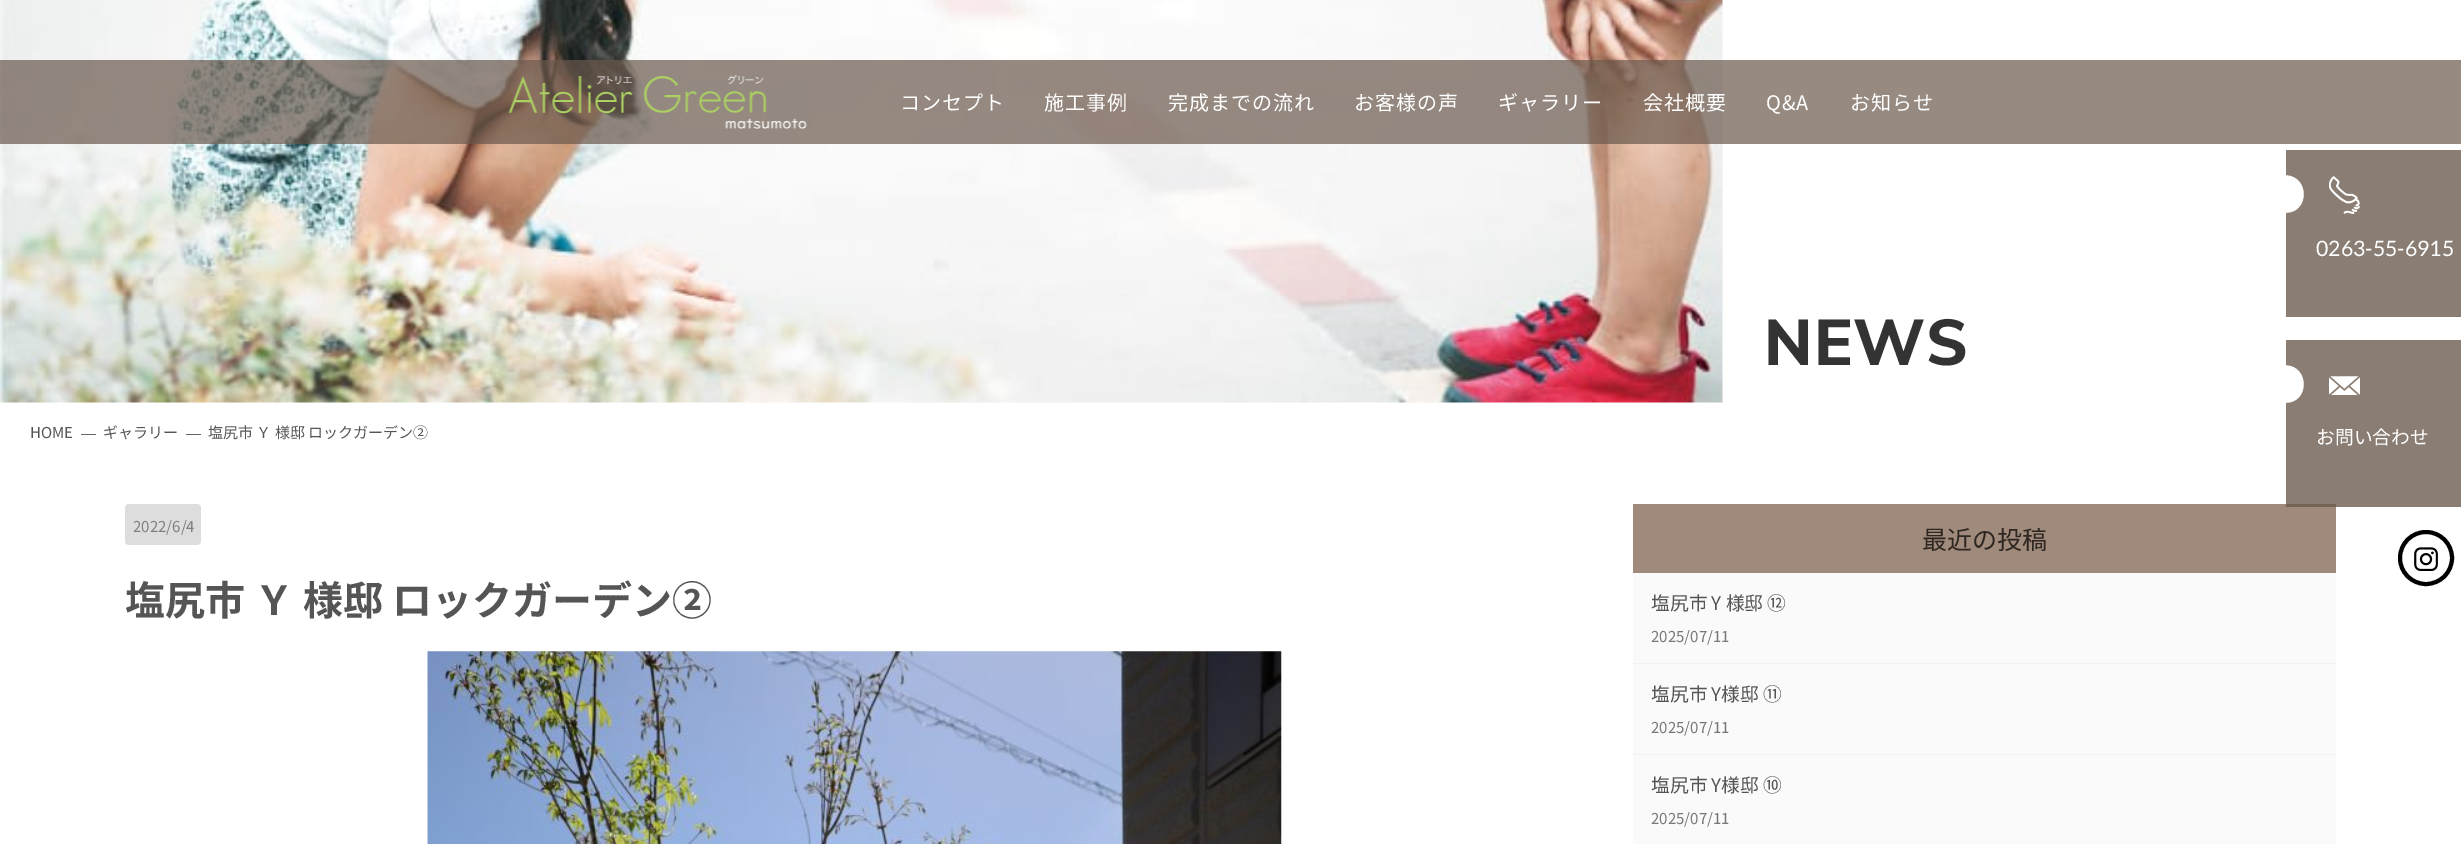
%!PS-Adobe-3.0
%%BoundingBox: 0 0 2461 844
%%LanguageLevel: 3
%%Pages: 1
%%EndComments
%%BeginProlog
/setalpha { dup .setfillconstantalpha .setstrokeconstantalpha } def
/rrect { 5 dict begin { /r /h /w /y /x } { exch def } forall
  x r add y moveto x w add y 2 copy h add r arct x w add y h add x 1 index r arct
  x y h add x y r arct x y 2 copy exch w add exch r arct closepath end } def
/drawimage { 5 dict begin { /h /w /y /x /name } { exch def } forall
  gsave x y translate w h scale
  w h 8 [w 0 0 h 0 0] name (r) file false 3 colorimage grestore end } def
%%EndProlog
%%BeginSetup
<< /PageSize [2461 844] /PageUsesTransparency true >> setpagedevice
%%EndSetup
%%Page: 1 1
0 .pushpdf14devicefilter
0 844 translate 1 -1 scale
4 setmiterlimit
1 setgray
0 0 2461 844 rectfill
(images/2.raw) 0 0 1723 403 drawimage
0.7 setalpha
0.412 0.345 0.298 setrgbcolor
0 60 2461 84 rectfill
1 setalpha
(images/1.raw) 508 75 299 54 drawimage
0.4 setgray
81 434 15 1 rectfill
186 434 15 1 rectfill
0.867 setgray
125 504 76 41 4 rrect fill
(images/3.raw) 427 651 855 193 drawimage
0.98 setgray
1633 573 703 271 rectfill
0.627 0.541 0.482 setrgbcolor
1633 504 703 69 rectfill
0.945 setgray
1633 663 703 1 rectfill
1633 754 703 1 rectfill
0.541 0.49 0.451 setrgbcolor
newpath 2286 150 moveto 2286 175 lineto 2310 176 2310 213 2286 213 curveto 2286 317 lineto 2461 317 lineto 2461 150 lineto closepath fill
(images/4.raw) 2329 176 31 38 drawimage
0.78 setalpha
0.412 0.345 0.298 setrgbcolor
newpath 2286 340 moveto 2286 365 lineto 2310 366 2310 403 2286 403 curveto 2286 507 lineto 2461 507 lineto 2461 340 lineto closepath fill
1 setalpha
(images/5.raw) 2329 376 31 19 drawimage
0 setgray
4 setlinewidth
newpath 2426 558 26 0 360 arc closepath stroke
(images/6.raw) 2414 547 24 24 drawimage
/NotoSansJP-Regular [20 0 0 -20 0 0] selectfont
1 setgray
900 110 moveto 1 0 (コンセプト) ashow
1044 110 moveto 1 0 (施工事例) ashow
1168 110 moveto 1 0 (完成までの流れ) ashow
1354 110 moveto 1 0 (お客様の声) ashow
1498 110 moveto 1 0 (ギャラリー) ashow
1643 110 moveto 1 0 (会社概要) ashow
1766 110 moveto 1 0 (Q&A) ashow
1850 110 moveto 1 0 (お知らせ) ashow
/Muli-ExtraBold [64 0 0 -64 0 0] selectfont
0.2 setgray
1764 365 moveto 1 0 (NEWS) ashow
/NotoSansJP-Regular [15 0 0 -15 0 0] selectfont
0.333 setgray
30 438 moveto (HOME) show
103 438 moveto (ギャラリー) show
208 438 moveto (塩尻市 Ｙ 様邸 ロックガーデン②) show
0.502 setgray
133 532 moveto (2022/6/4) show
/NotoSansJP-Bold [40 0 0 -40 0 0] selectfont
0.333 setgray
125 615 moveto (塩尻市 Ｙ 様邸 ロックガーデン②) show
/NotoSansJP-Regular [25 0 0 -25 0 0] selectfont
0.18 0.149 0.129 setrgbcolor
1922 549 moveto (最近の投稿) show
/NotoSansJP-Regular [18.75 0 0 -18.75 0 0] selectfont
0.333 setgray
1651 610 moveto (塩尻市 Y 様邸 ⑫) show
/NotoSansJP-Regular [15 0 0 -15 0 0] selectfont
0.467 setgray
1651 642 moveto (2025/07/11) show
/NotoSansJP-Regular [18.75 0 0 -18.75 0 0] selectfont
0.333 setgray
1651 701 moveto (塩尻市 Y様邸 ⑪) show
/NotoSansJP-Regular [15 0 0 -15 0 0] selectfont
0.467 setgray
1651 733 moveto (2025/07/11) show
/NotoSansJP-Regular [18.75 0 0 -18.75 0 0] selectfont
0.333 setgray
1651 792 moveto (塩尻市 Y様邸 ⑩) show
/NotoSansJP-Regular [15 0 0 -15 0 0] selectfont
0.467 setgray
1651 824 moveto (2025/07/11) show
/Lato-Regular [21.25 0 0 -21.25 0 0] selectfont
1 setgray
2316 256 moveto (0263-55-6915) show
/NotoSansJP-Regular [18.75 0 0 -18.75 0 0] selectfont
2316 444 moveto (お問い合わせ) show
.poppdf14devicefilter showpage
%%EOF
